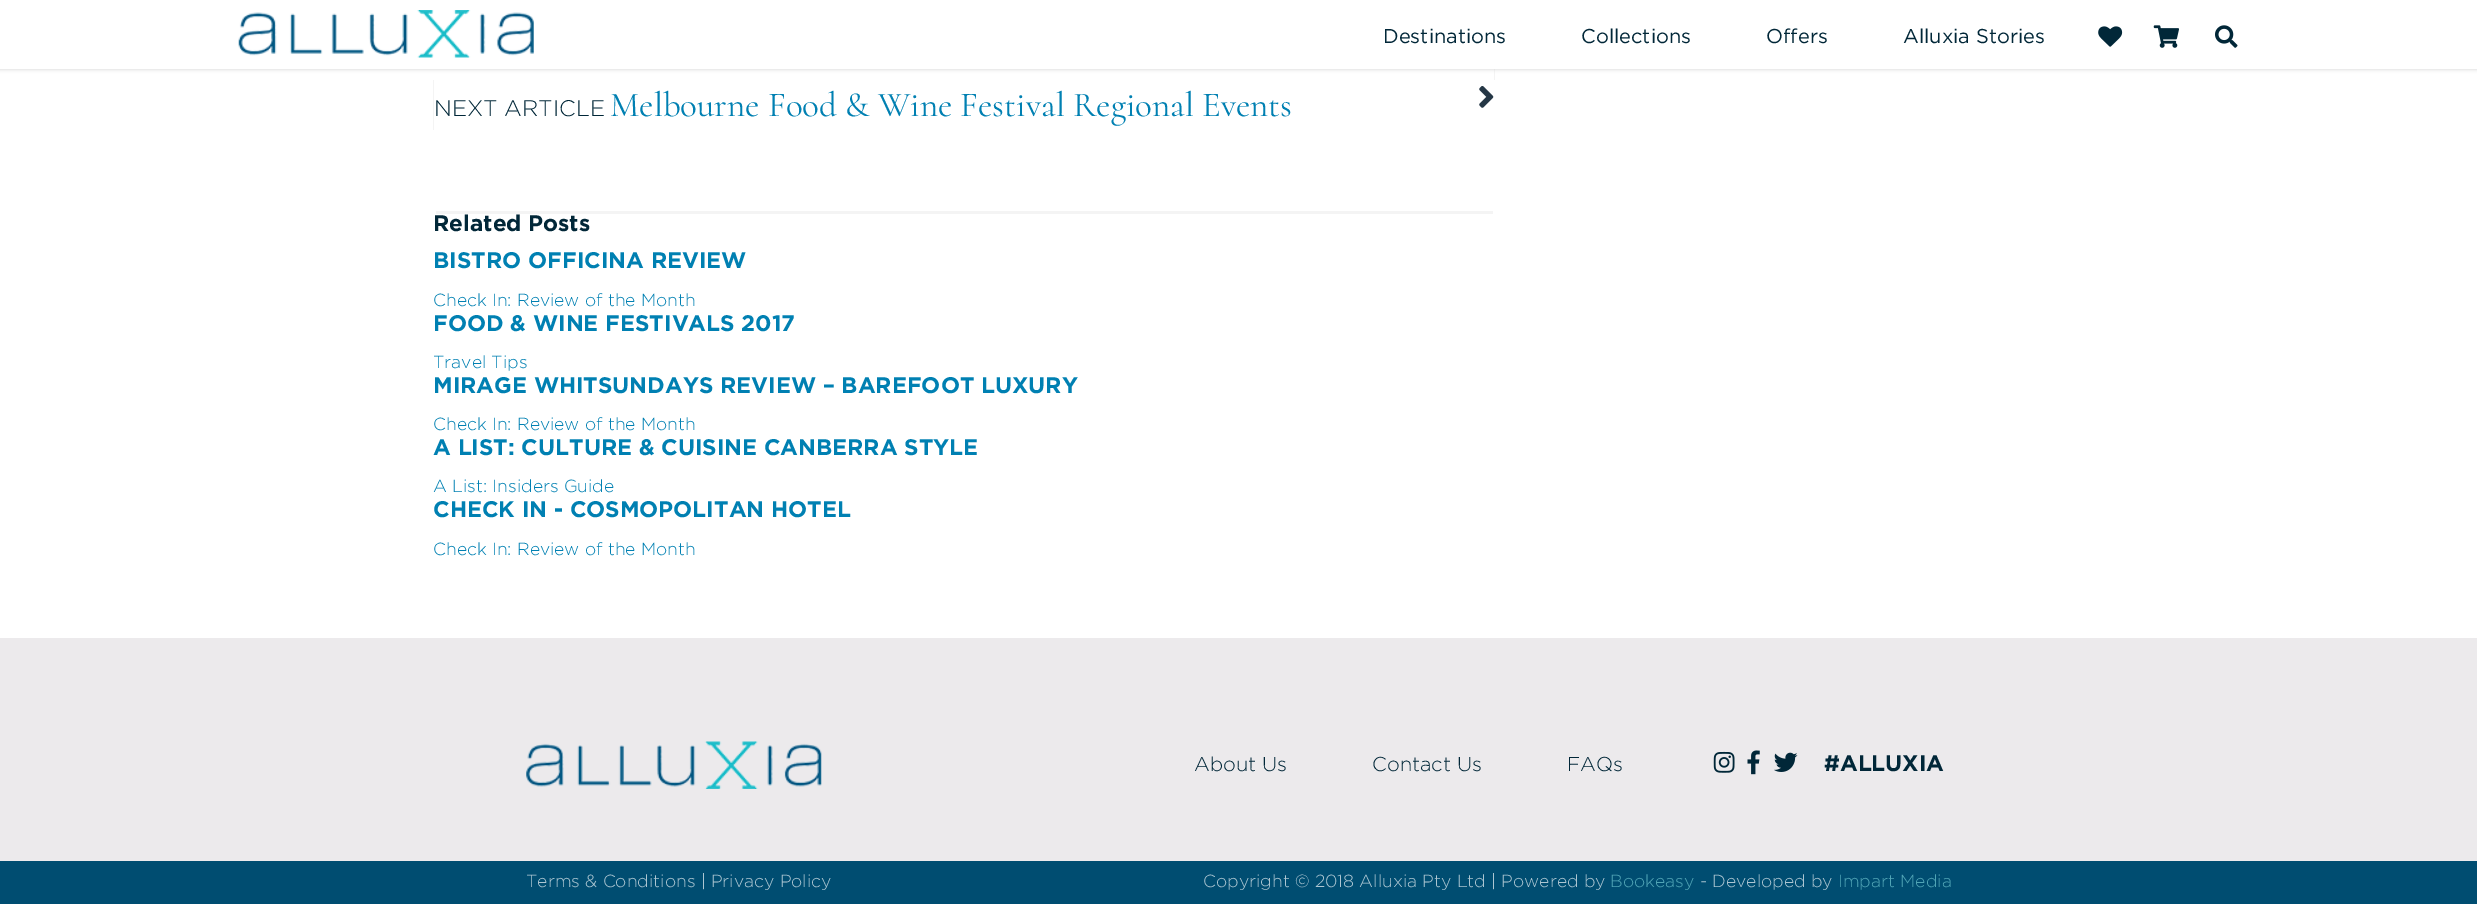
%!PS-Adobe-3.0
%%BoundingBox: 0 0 2477 904
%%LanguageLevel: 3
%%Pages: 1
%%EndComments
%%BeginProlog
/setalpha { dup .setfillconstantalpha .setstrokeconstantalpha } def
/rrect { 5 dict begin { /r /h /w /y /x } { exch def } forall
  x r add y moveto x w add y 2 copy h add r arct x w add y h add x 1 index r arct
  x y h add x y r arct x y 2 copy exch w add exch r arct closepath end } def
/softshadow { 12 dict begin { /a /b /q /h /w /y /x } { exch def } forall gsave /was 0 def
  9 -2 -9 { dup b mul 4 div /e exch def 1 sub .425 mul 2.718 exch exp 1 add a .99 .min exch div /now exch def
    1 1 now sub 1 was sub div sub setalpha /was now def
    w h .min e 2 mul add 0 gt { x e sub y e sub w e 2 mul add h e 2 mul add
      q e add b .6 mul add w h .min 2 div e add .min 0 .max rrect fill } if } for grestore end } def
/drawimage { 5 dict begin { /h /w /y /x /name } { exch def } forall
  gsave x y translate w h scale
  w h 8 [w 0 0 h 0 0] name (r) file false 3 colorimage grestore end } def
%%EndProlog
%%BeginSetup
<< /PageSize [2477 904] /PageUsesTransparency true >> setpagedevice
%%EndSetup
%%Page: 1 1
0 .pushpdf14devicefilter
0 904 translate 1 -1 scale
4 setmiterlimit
1 setgray
0 0 2477 904 rectfill
0.957 setgray
1494 69 1 11 rectfill
0.8 setgray
0 0 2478 69 0 2 1 softshadow
1 setgray
0 0 2477 69 rectfill
(images/1.raw) 238 10 296 48 drawimage
(images/2.raw) 2098 26 25 21 drawimage
(images/3.raw) 2153 25 26 23 drawimage
(images/4.raw) 2215 25 23 23 drawimage
0.957 setgray
436 211 1057 3 rectfill
433 80 1 50 rectfill
(images/5.raw) 1479 86 15 22 drawimage
0.925 0.918 0.925 setrgbcolor
0 638 2477 223 rectfill
(images/6.raw) 526 741 296 48 drawimage
(images/7.raw) 1713 751 22 22 drawimage
(images/8.raw) 1747 750 13 25 drawimage
(images/9.raw) 1774 752 24 20 drawimage
0 0.302 0.443 setrgbcolor
0 861 2477 43 rectfill
/Gotham-Regular [20 0 0 -20 0 0] selectfont
0.004 0.153 0.22 setrgbcolor
1383 43 moveto (Destinations) show
1581 43 moveto (Collections) show
1766 43 moveto (Offers) show
1903 43 moveto (Alluxia Stories) show
/Gotham-Light [22.5 0 0 -22.5 0 0] selectfont
434 116 moveto (NEXT ARTICLE) show
/Cormorant-Regular [35 0 0 -35 0 0] selectfont
0 0.502 0.698 setrgbcolor
610 116 moveto (Melbourne Food & Wine Festival Regional Events) show
/Gotham-Bold [22.5 0 0 -22.5 0 0] selectfont
0.004 0.153 0.22 setrgbcolor
433 231 moveto (Related Posts) show
0 0.502 0.698 setrgbcolor
433 268 moveto (BISTRO OFFICINA REVIEW) show
/Gotham-Light [17.5 0 0 -17.5 0 0] selectfont
433 306 moveto (Check In: Review of the Month) show
/Gotham-Bold [22.5 0 0 -22.5 0 0] selectfont
433 331 moveto (FOOD & WINE FESTIVALS 2017) show
/Gotham-Light [17.5 0 0 -17.5 0 0] selectfont
433 368 moveto (Travel Tips) show
/Gotham-Bold [22.5 0 0 -22.5 0 0] selectfont
433 393 moveto (MIRAGE WHITSUNDAYS REVIEW – BAREFOOT LUXURY) show
/Gotham-Light [17.5 0 0 -17.5 0 0] selectfont
433 430 moveto (Check In: Review of the Month) show
/Gotham-Bold [22.5 0 0 -22.5 0 0] selectfont
433 455 moveto (A LIST: CULTURE & CUISINE CANBERRA STYLE) show
/Gotham-Light [17.5 0 0 -17.5 0 0] selectfont
433 492 moveto (A List: Insiders Guide) show
/Gotham-Bold [22.5 0 0 -22.5 0 0] selectfont
433 517 moveto (CHECK IN - COSMOPOLITAN HOTEL) show
/Gotham-Light [17.5 0 0 -17.5 0 0] selectfont
433 555 moveto (Check In: Review of the Month) show
/Gotham-Light [20 0 0 -20 0 0] selectfont
0.004 0.153 0.22 setrgbcolor
1194 771 moveto (About Us) show
1372 771 moveto (Contact Us) show
1567 771 moveto (FAQs) show
/Gotham-Bold [22.5 0 0 -22.5 0 0] selectfont
1824 771 moveto (#ALLUXIA) show
/Gotham-Light [17.5 0 0 -17.5 0 0] selectfont
0.678 0.776 0.824 setrgbcolor
526 887 moveto (Terms & Conditions | Privacy Policy) show
1203 887 moveto (Copyright © 2018 Alluxia Pty Ltd | Powered by) show
0.318 0.647 0.714 setrgbcolor
1610 887 moveto (Bookeasy) show
0.678 0.776 0.824 setrgbcolor
1700 887 moveto (- Developed by) show
0.318 0.647 0.714 setrgbcolor
1838 887 moveto (Impart Media) show
.poppdf14devicefilter showpage
%%EOF
